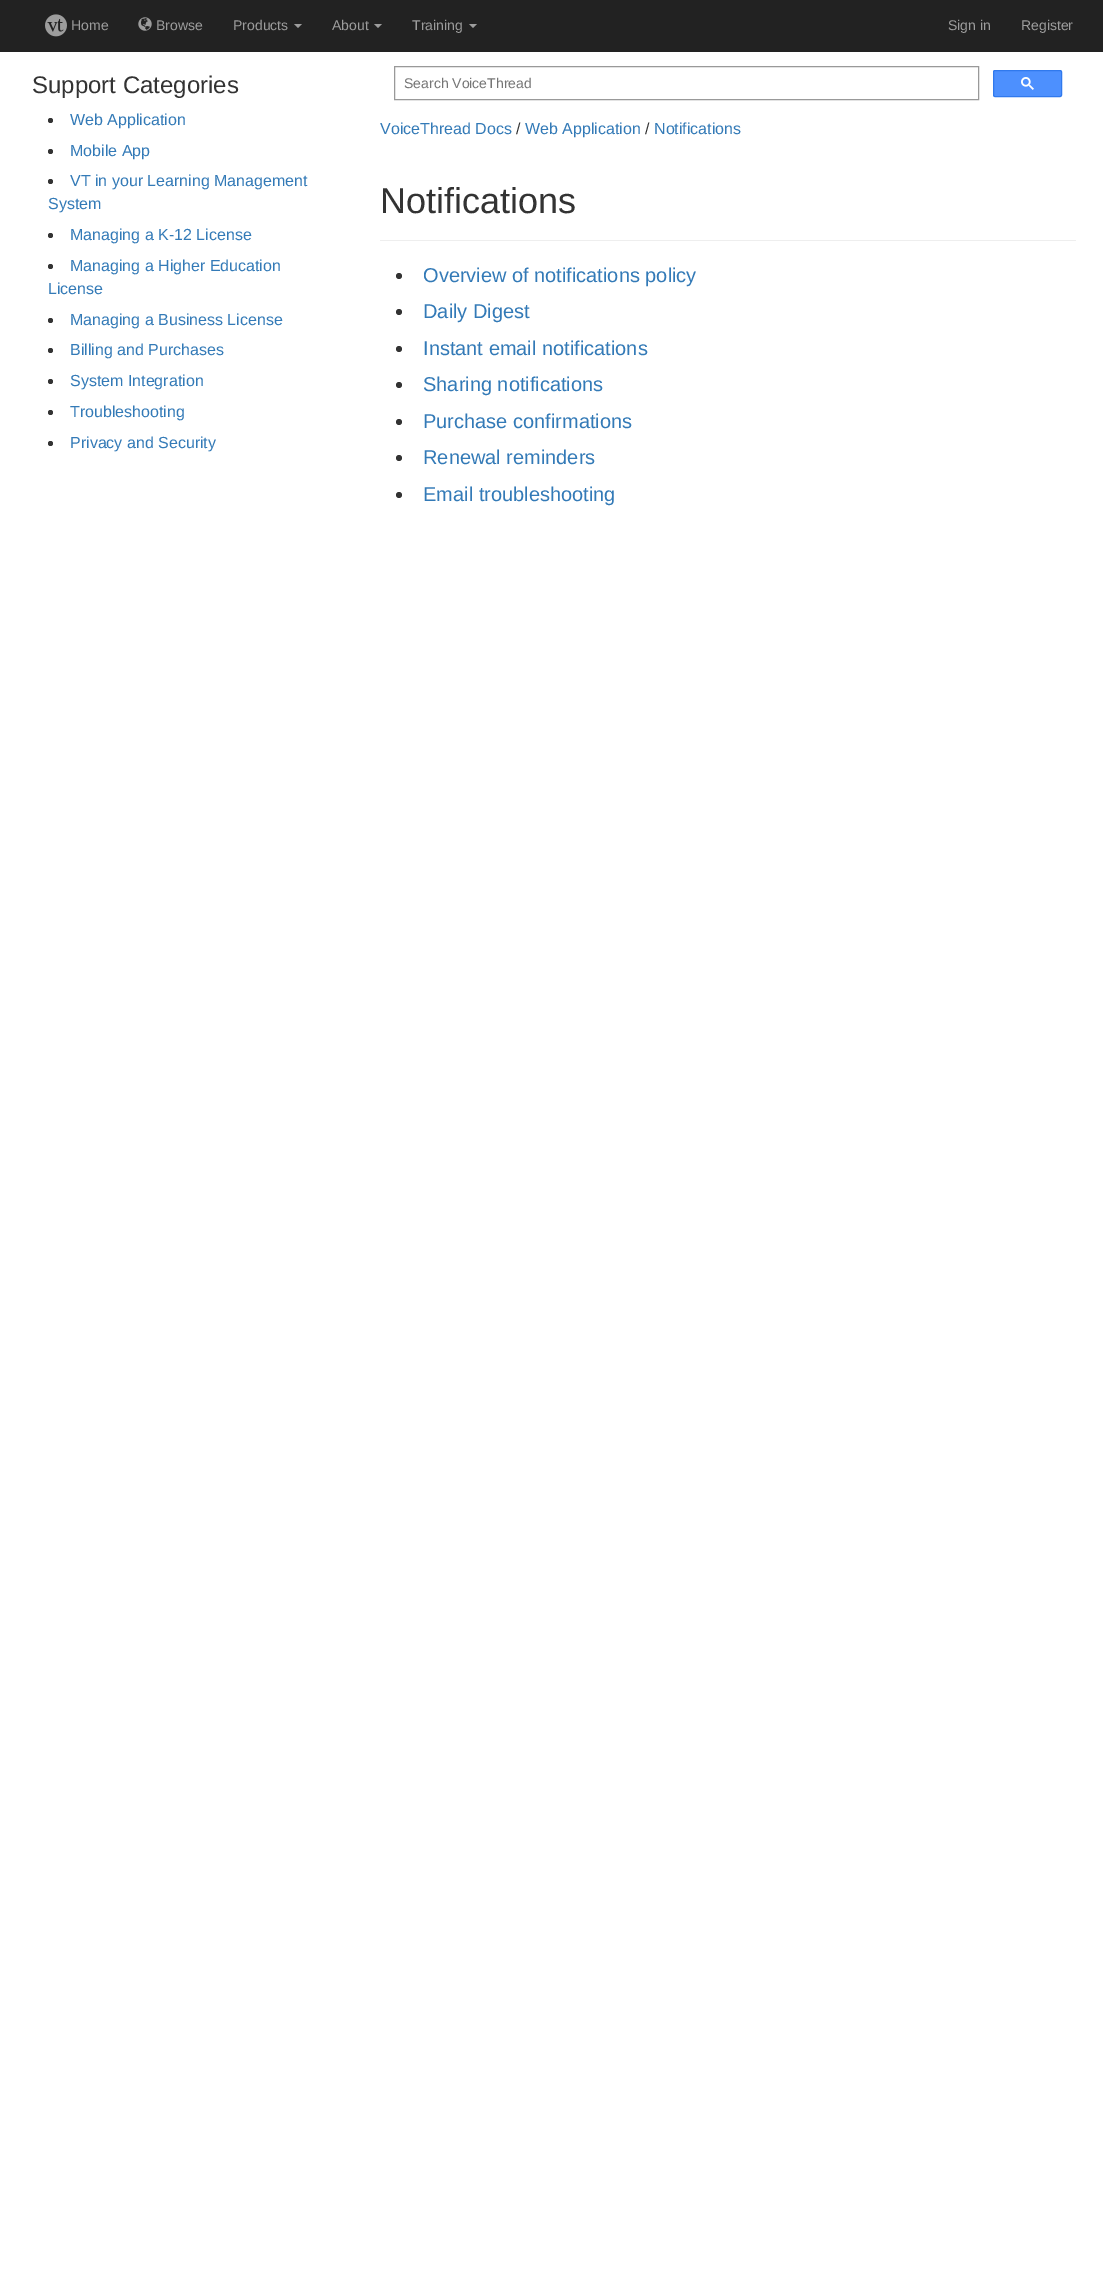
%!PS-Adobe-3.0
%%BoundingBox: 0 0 1103 2294
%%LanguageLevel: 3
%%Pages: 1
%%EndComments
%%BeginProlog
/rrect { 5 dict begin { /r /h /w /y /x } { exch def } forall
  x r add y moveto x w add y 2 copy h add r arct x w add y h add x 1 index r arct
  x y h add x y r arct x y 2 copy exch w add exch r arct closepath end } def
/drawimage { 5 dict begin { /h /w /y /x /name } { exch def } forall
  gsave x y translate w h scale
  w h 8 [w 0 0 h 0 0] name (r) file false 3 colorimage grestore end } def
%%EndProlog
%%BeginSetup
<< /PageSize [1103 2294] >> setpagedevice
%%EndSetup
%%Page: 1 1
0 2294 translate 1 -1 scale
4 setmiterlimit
1 setgray
0 0 1103 2294 rectfill
0.133 setgray
0 0 1103 52 rectfill
(images/1.raw) 45 14 22 23 drawimage
(images/2.raw) 138 17 14 14 drawimage
0.616 setgray
newpath 294 24 moveto 302 24 lineto 298 28 lineto closepath fill
newpath 374 24 moveto 382 24 lineto 378 28 lineto closepath fill
newpath 469 24 moveto 477 24 lineto 473 28 lineto closepath fill
0.2 setgray
newpath 50.5 120.5 2.5 0 360 arc closepath fill
newpath 50.5 151.5 2.5 0 360 arc closepath fill
newpath 50.5 181.5 2.5 0 360 arc closepath fill
newpath 50.5 235.5 2.5 0 360 arc closepath fill
newpath 50.5 266.5 2.5 0 360 arc closepath fill
newpath 50.5 320.5 2.5 0 360 arc closepath fill
newpath 50.5 350.5 2.5 0 360 arc closepath fill
newpath 50.5 381.5 2.5 0 360 arc closepath fill
newpath 50.5 412.5 2.5 0 360 arc closepath fill
newpath 50.5 443.5 2.5 0 360 arc closepath fill
0.6 setgray
394.5 66.5 584 33 rectstroke
0.302 0.565 0.996 setrgbcolor
993.5 70.5 68 26 1.5 rrect gsave fill grestore
0.188 0.475 0.929 setrgbcolor
stroke
(images/3.raw) 1021 77 13 13 drawimage
0.933 setgray
380 240 696 1 rectfill
0.2 setgray
newpath 399 276 3 0 360 arc closepath fill
newpath 399 312 3 0 360 arc closepath fill
newpath 399 349 3 0 360 arc closepath fill
newpath 399 385 3 0 360 arc closepath fill
newpath 399 422 3 0 360 arc closepath fill
newpath 399 458 3 0 360 arc closepath fill
newpath 399 495 3 0 360 arc closepath fill
/LiberationSans-Regular [14 0 0 -14 0 0] selectfont
0.616 setgray
71 30 moveto (Home) show
156 30 moveto (Browse) show
233 30 moveto (Products) show
332 30 moveto (About) show
412 30 moveto (Training) show
948 30 moveto (Sign in) show
1021 30 moveto (Register) show
/LiberationSans-Regular [24 0 0 -24 0 0] selectfont
0.2 setgray
32 93 moveto (Support Categories) show
/LiberationSans-Regular [16 0 0 -16 0 0] selectfont
0.2 0.478 0.718 setrgbcolor
70 125 moveto (Web Application) show
70 156 moveto (Mobile App) show
70 186 moveto (VT in your Learning Management) show
48 209 moveto (System) show
70 240 moveto (Managing a K-12 License) show
70 271 moveto (Managing a Higher Education) show
48 294 moveto (License) show
70 325 moveto (Managing a Business License) show
70 355 moveto (Billing and Purchases) show
70 386 moveto (System Integration) show
70 417 moveto (Troubleshooting) show
70 448 moveto (Privacy and Security) show
/LiberationSans-Regular [14 0 0 -14 0 0] selectfont
0.459 setgray
404 88 moveto (Search VoiceThread) show
/LiberationSans-Regular [16 0 0 -16 0 0] selectfont
0.2 0.478 0.718 setrgbcolor
380 134 moveto (VoiceThread Docs) show
0.2 setgray
516 134 moveto (/) show
0.2 0.478 0.718 setrgbcolor
525 134 moveto (Web Application) show
0.2 setgray
645 134 moveto (/) show
0.2 0.478 0.718 setrgbcolor
654 134 moveto (Notifications) show
/LiberationSans-Regular [36 0 0 -36 0 0] selectfont
0.2 setgray
380 213 moveto (Notifications) show
/LiberationSans-Regular [20 0 0 -20 0 0] selectfont
0.2 0.478 0.718 setrgbcolor
423 282 moveto (Overview of notifications policy) show
423 318 moveto (Daily Digest) show
423 355 moveto (Instant email notifications) show
423 391 moveto (Sharing notifications) show
423 428 moveto (Purchase confirmations) show
423 464 moveto (Renewal reminders) show
423 501 moveto (Email troubleshooting) show
showpage
%%EOF
